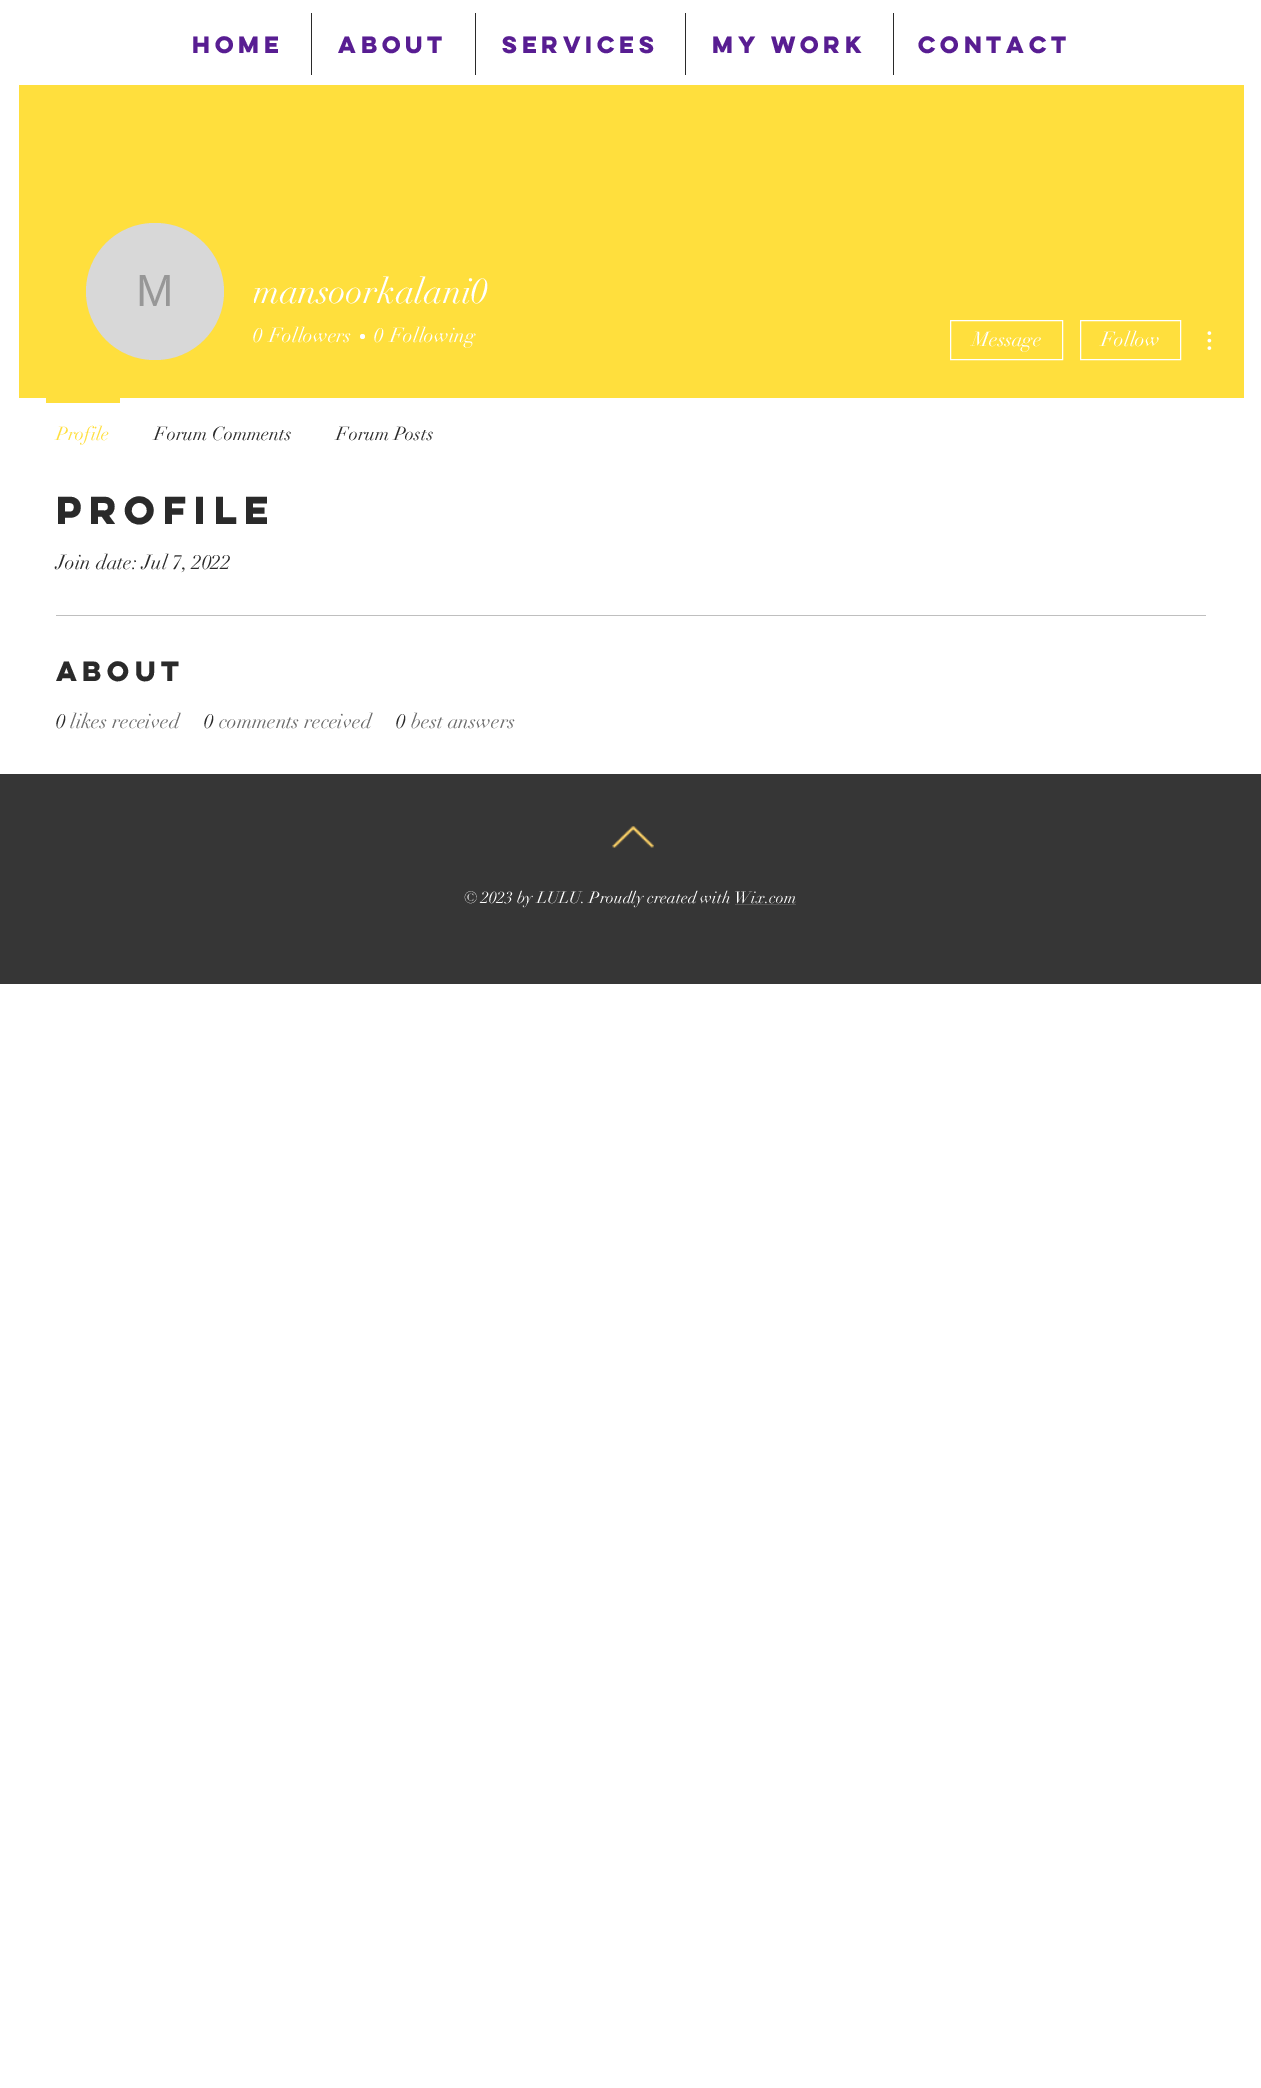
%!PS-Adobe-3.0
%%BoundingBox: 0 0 1261 2088
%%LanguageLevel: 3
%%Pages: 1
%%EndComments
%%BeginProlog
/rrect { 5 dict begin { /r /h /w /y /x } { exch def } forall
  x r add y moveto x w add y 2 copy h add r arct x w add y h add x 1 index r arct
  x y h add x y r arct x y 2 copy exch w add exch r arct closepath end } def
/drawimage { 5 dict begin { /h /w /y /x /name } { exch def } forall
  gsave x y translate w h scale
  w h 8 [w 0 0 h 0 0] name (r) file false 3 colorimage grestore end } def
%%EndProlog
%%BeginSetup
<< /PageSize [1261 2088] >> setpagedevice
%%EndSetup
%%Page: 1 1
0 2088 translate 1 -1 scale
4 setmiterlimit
1 setgray
0 0 1261 2088 rectfill
0.165 setgray
311 13 1 62 rectfill
475 13 1 62 rectfill
685 13 1 62 rectfill
893 13 1 62 rectfill
1 0.875 0.239 setrgbcolor
19 85 1225 313 rectfill
0.847 setgray
86 223 138 137 68.5 rrect fill
1 setgray
newpath 362.5 336.5 2.5 0 360 arc closepath fill
950.5 320.5 112 39 rectstroke
1080.5 320.5 100 39 rectstroke
(images/1.raw) 1207 331 5 19 drawimage
1 0.875 0.239 setrgbcolor
46 398 74 5 rectfill
0.749 setgray
56 615 1150 1 rectfill
0.212 setgray
0 774 1261 210 rectfill
(images/2.raw) 612 826 42 22 drawimage
/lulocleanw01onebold-Bold [21.25 0 0 -21.25 0 0] selectfont
0.345 0.114 0.573 setrgbcolor
192 53 moveto (Home) show
338 53 moveto (About) show
502 53 moveto (Services) show
712 53 moveto (My Work) show
918 53 moveto (Contact) show
/LiberationSans-Regular [45 0 0 -45 0 0] selectfont
0.592 setgray
136 306 moveto (M) show
gsave
254 268 235 50 rectclip
/didot-Regular [35 0 0 -35 0 0] selectfont
1 setgray
253 303 moveto (mansoorkalani0) show
grestore
/didot-Regular [20 0 0 -20 0 0] selectfont
1 setgray
253 342 moveto (0) show
269 342 moveto (Followers) show
374 342 moveto (0) show
390 342 moveto (Following) show
972 346 moveto (Message) show
1101 346 moveto (Follow) show
/didot-Regular [18.75 0 0 -18.75 0 0] selectfont
1 0.875 0.239 setrgbcolor
56 440 moveto (Profile) show
0.165 setgray
154 440 moveto (Forum Comments) show
336 440 moveto (Forum Posts) show
/lulocleanw01onebold-Bold [35 0 0 -35 0 0] selectfont
56 524 moveto (Profile) show
/didot-Regular [20 0 0 -20 0 0] selectfont
56 569 moveto (Join date: Jul 7, 2022) show
/lulocleanw01onebold-Bold [25 0 0 -25 0 0] selectfont
56 681 moveto (About) show
/didot-Regular [20 0 0 -20 0 0] selectfont
56 728 moveto (0) show
0.416 setgray
70 728 moveto (likes received) show
0.165 setgray
204 728 moveto (0) show
0.416 setgray
219 728 moveto (comments received) show
0.165 setgray
396 728 moveto (0) show
0.416 setgray
411 728 moveto (best answers) show
/didot-Regular [16.25 0 0 -16.25 0 0] selectfont
1 setgray
464 903 moveto (© 2023 by LULU. Proudly created with Wix.com) show
0.333 setgray
735 904 61 1 rectfill
showpage
%%EOF
